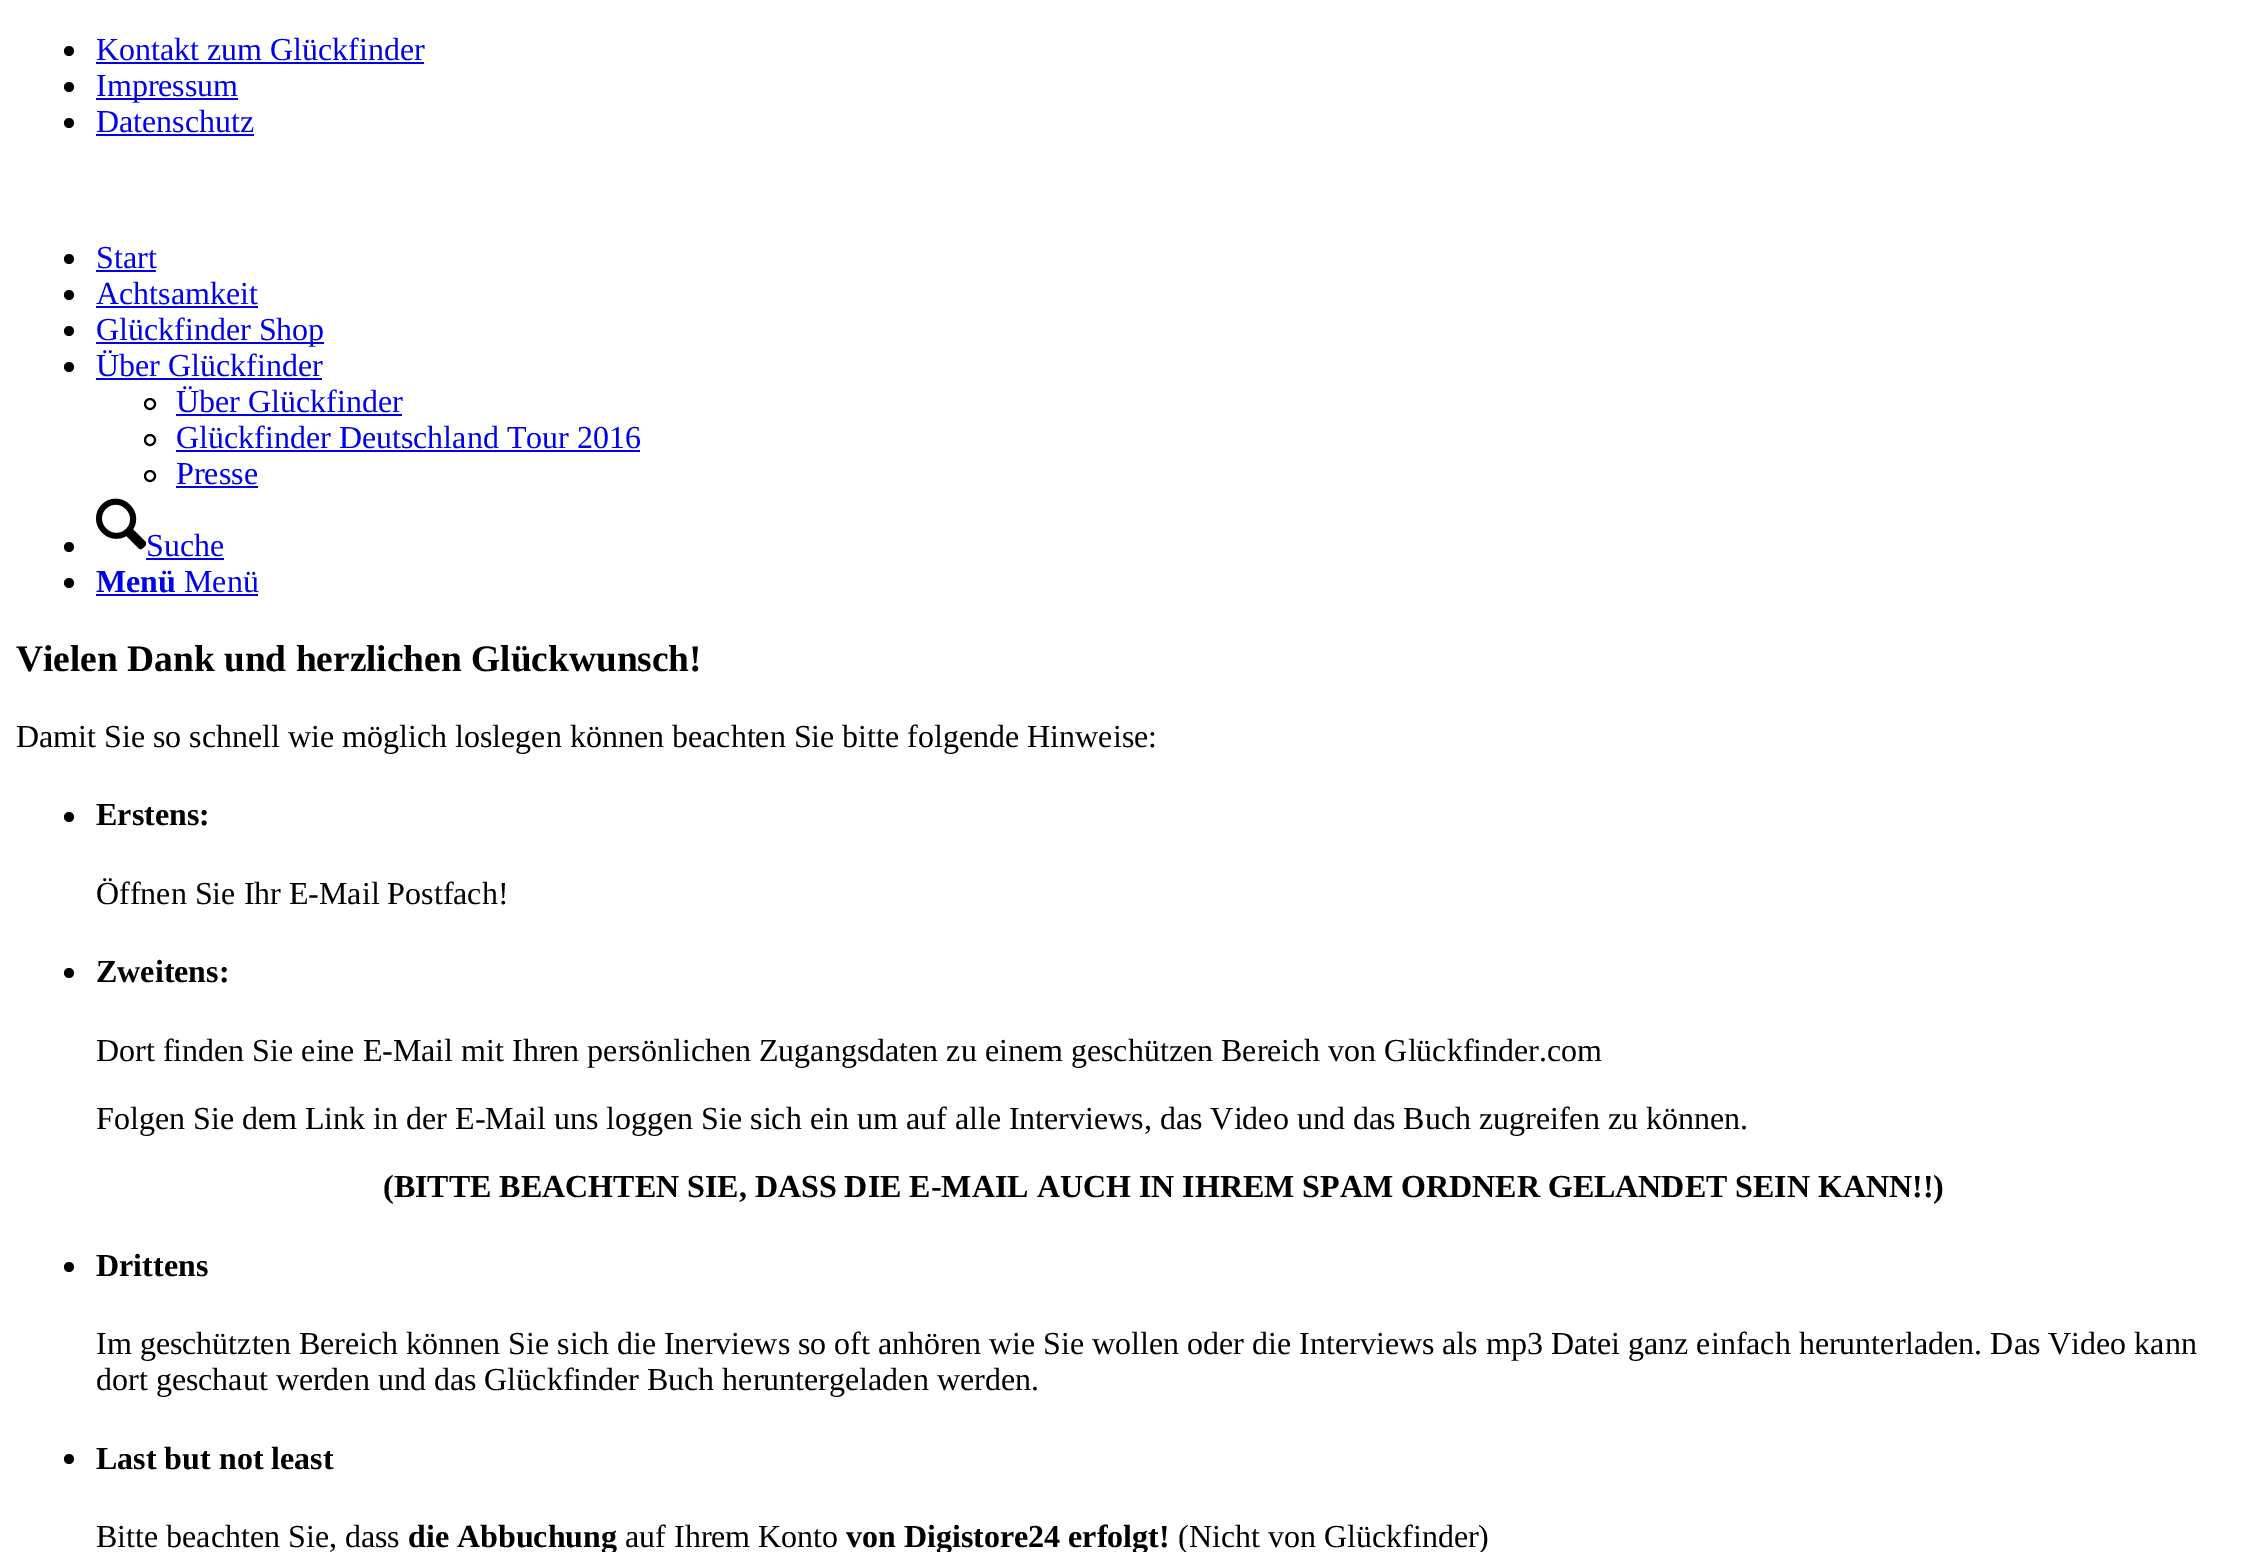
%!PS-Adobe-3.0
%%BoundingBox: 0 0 2247 1552
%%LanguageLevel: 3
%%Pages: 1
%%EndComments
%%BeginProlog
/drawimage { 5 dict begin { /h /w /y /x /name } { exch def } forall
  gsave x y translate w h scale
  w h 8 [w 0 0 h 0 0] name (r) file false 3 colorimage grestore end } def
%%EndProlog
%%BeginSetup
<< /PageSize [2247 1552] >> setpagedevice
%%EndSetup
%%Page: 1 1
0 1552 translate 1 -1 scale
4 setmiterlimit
1 setgray
0 0 2247 1552 rectfill
0 setgray
newpath 69 51 5 0 360 arc closepath fill
0 0 0.933 setrgbcolor
96 62 328 2 rectfill
0 setgray
newpath 69 87 5 0 360 arc closepath fill
0 0 0.933 setrgbcolor
96 98 142 2 rectfill
0 setgray
newpath 69 123 5 0 360 arc closepath fill
0 0 0.933 setrgbcolor
96 134 158 2 rectfill
0 setgray
newpath 69 259 5 0 360 arc closepath fill
0 0 0.933 setrgbcolor
96 270 60 2 rectfill
0 setgray
newpath 69 295 5 0 360 arc closepath fill
0 0 0.933 setrgbcolor
96 306 162 2 rectfill
0 setgray
newpath 69 331 5 0 360 arc closepath fill
0 0 0.933 setrgbcolor
96 342 228 2 rectfill
0 setgray
newpath 69 367 5 0 360 arc closepath fill
0 0 0.933 setrgbcolor
96 378 226 2 rectfill
0 setgray
2 setlinewidth
newpath 150 404 5 0 360 arc closepath stroke
0 0 0.933 setrgbcolor
176 414 226 2 rectfill
0 setgray
newpath 150 440 5 0 360 arc closepath stroke
0 0 0.933 setrgbcolor
176 450 464 2 rectfill
0 setgray
newpath 150 476 5 0 360 arc closepath stroke
0 0 0.933 setrgbcolor
176 486 82 2 rectfill
0 setgray
newpath 69 547 5 0 360 arc closepath fill
(images/1.raw) 96 498 50 52 drawimage
0 0 0.933 setrgbcolor
146 558 78 2 rectfill
0 setgray
newpath 69 583 5 0 360 arc closepath fill
0 0 0.933 setrgbcolor
96 594 162 2 rectfill
0 setgray
newpath 69 817 5 0 360 arc closepath fill
newpath 69 973 5 0 360 arc closepath fill
newpath 69 1267 5 0 360 arc closepath fill
newpath 69 1459 5 0 360 arc closepath fill
/LiberationSerif-Regular [32 0 0 -32 0 0] selectfont
0 0 0.933 setrgbcolor
96 60 moveto (Kontakt zum Glückfinder) show
96 96 moveto (Impressum) show
96 132 moveto (Datenschutz) show
96 268 moveto (Start) show
96 304 moveto (Achtsamkeit) show
96 340 moveto (Glückfinder Shop) show
96 376 moveto (Über Glückfinder) show
176 412 moveto (Über Glückfinder) show
176 448 moveto (Glückfinder Deutschland Tour 2016) show
176 484 moveto (Presse) show
146 556 moveto (Suche) show
/LiberationSerif-Bold [32 0 0 -32 0 0] selectfont
96 592 moveto (Menü) show
/LiberationSerif-Regular [32 0 0 -32 0 0] selectfont
184 592 moveto (Menü) show
/LiberationSerif-Bold [37.4 0 0 -37.4 0 0] selectfont
0 setgray
16 671 moveto (Vielen Dank und herzlichen Glückwunsch!) show
/LiberationSerif-Regular [32 0 0 -32 0 0] selectfont
16 747 moveto (Damit Sie so schnell wie möglich loslegen können beachten Sie bitte folgende Hinweise:) show
/LiberationSerif-Bold [32 0 0 -32 0 0] selectfont
96 825 moveto (Erstens:) show
/LiberationSerif-Regular [32 0 0 -32 0 0] selectfont
96 904 moveto (Öffnen Sie Ihr E-Mail Postfach!) show
/LiberationSerif-Bold [32 0 0 -32 0 0] selectfont
96 982 moveto (Zweitens:) show
/LiberationSerif-Regular [32 0 0 -32 0 0] selectfont
96 1061 moveto (Dort finden Sie eine E-Mail mit Ihren persönlichen Zugangsdaten zu einem geschützen Bereich von Glückfinder.com) show
96 1129 moveto (Folgen Sie dem Link in der E-Mail uns loggen Sie sich ein um auf alle Interviews, das Video und das Buch zugreifen zu können.) show
/LiberationSerif-Bold [32 0 0 -32 0 0] selectfont
383 1197 moveto (\(BITTE BEACHTEN SIE, DASS DIE E-MAIL AUCH IN IHREM SPAM ORDNER GELANDET SEIN KANN!!\)) show
96 1276 moveto (Drittens) show
/LiberationSerif-Regular [32 0 0 -32 0 0] selectfont
96 1354 moveto (Im geschützten Bereich können Sie sich die Inerviews so oft anhören wie Sie wollen oder die Interviews als mp3 Datei ganz einfach herunterladen. Das Video kann) show
96 1390 moveto (dort geschaut werden und das Glückfinder Buch heruntergeladen werden.) show
/LiberationSerif-Bold [32 0 0 -32 0 0] selectfont
96 1469 moveto (Last but not least) show
/LiberationSerif-Regular [32 0 0 -32 0 0] selectfont
96 1547 moveto (Bitte beachten Sie, dass) show
/LiberationSerif-Bold [32 0 0 -32 0 0] selectfont
408 1547 moveto (die Abbuchung) show
/LiberationSerif-Regular [32 0 0 -32 0 0] selectfont
625 1547 moveto (auf Ihrem Konto) show
/LiberationSerif-Bold [32 0 0 -32 0 0] selectfont
846 1547 moveto (von Digistore24 erfolgt!) show
/LiberationSerif-Regular [32 0 0 -32 0 0] selectfont
1178 1547 moveto (\(Nicht von Glückfinder\)) show
showpage
%%EOF
